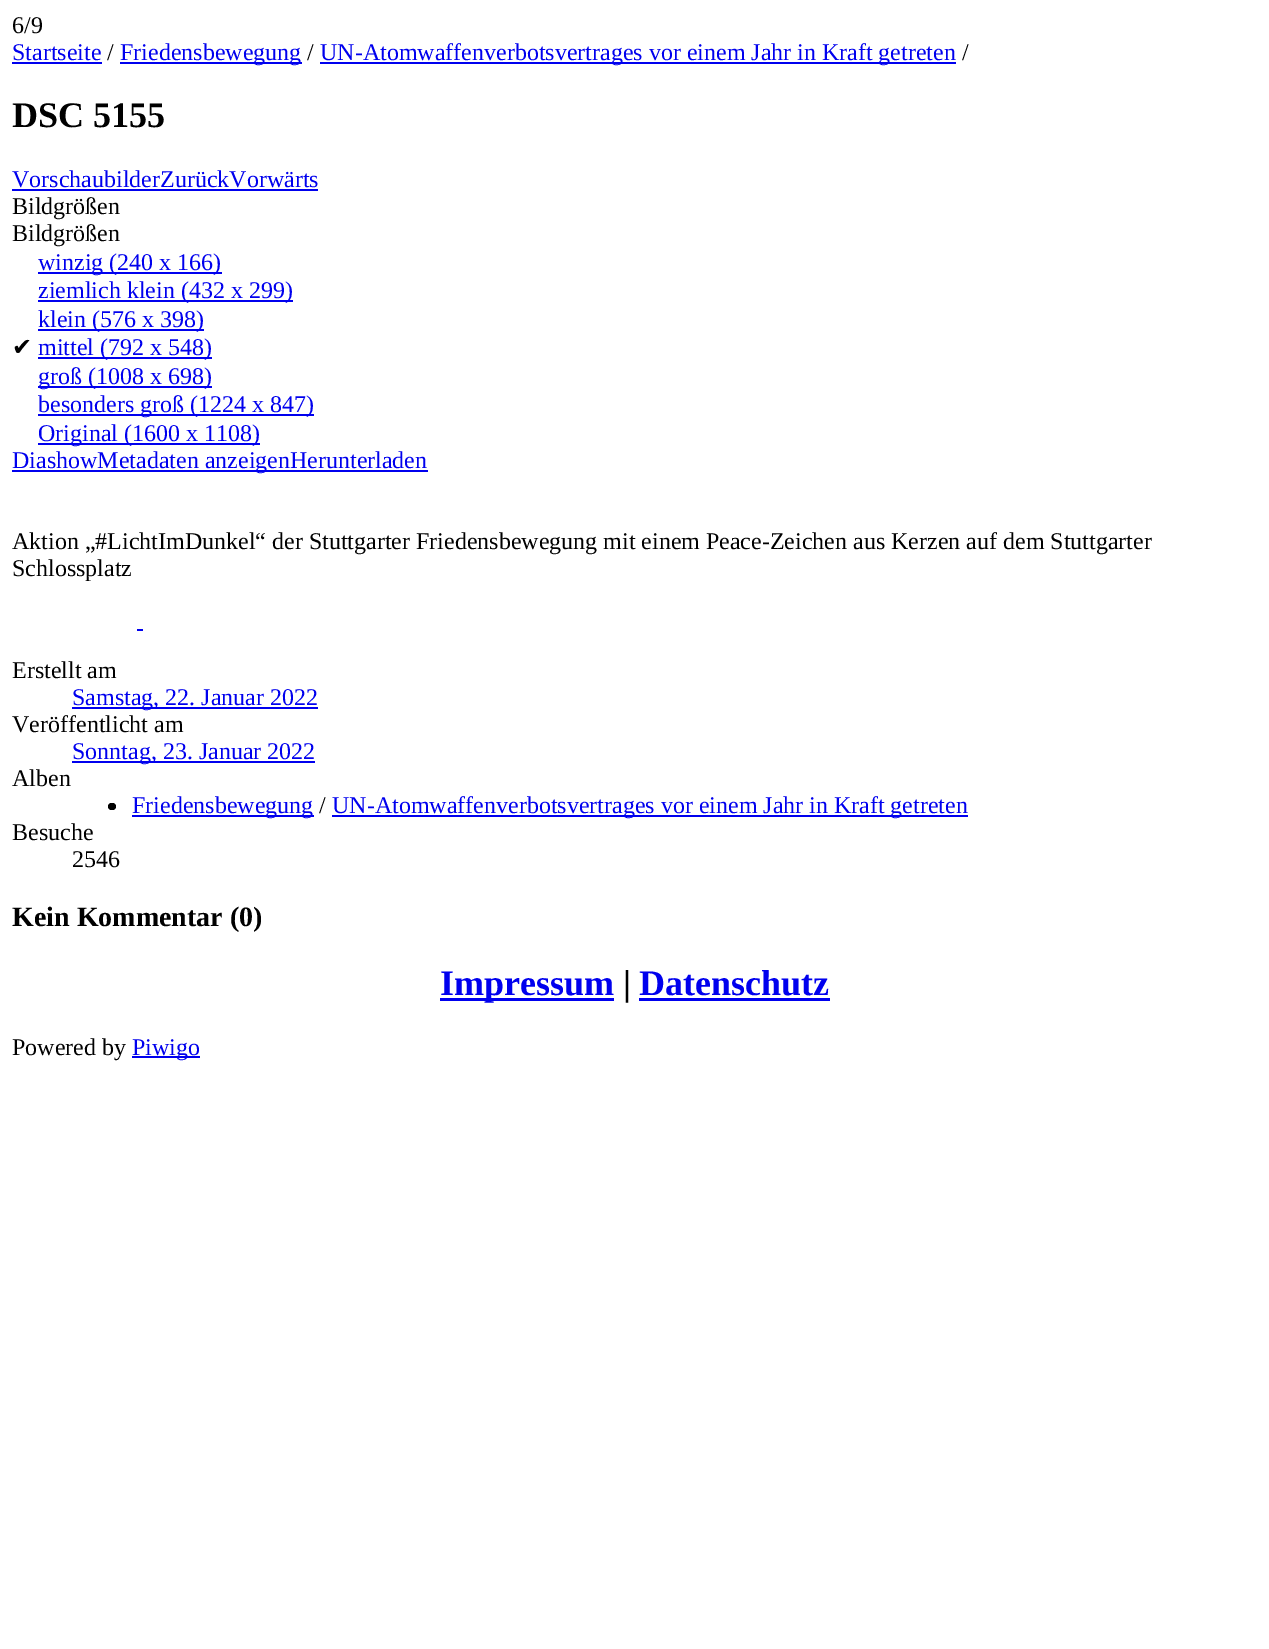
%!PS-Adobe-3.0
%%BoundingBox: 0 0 1269 1649
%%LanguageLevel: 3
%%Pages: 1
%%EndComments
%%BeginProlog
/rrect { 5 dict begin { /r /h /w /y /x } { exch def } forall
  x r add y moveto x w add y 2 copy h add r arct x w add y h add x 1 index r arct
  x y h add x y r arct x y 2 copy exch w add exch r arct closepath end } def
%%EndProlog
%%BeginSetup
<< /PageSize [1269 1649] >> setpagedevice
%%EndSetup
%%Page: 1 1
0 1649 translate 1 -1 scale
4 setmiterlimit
1 setgray
0 0 1269 1649 rectfill
0 0 0.933 setrgbcolor
12 62 90 2 rectfill
120 62 182 2 rectfill
320 62 636 2 rectfill
12 189 306 2 rectfill
38 272 184 2 rectfill
38 300 255 2 rectfill
38 329 166 2 rectfill
38 357 174 2 rectfill
38 386 174 2 rectfill
38 414 276 2 rectfill
38 443 222 2 rectfill
12 470 416 2 rectfill
137 629 6 2 rectfill
72 707 246 2 rectfill
72 761 243 2 rectfill
0 setgray
108 803 8 7 3.5 rrect fill
0 0 0.933 setrgbcolor
132 815 182 2 rectfill
332 815 636 2 rectfill
440 998 174 3 rectfill
639 998 191 3 rectfill
132 1056 68 2 rectfill
/LiberationSerif-Regular [24 0 0 -24 0 0] selectfont
0 setgray
12 33 moveto (6/9) show
0 0 0.933 setrgbcolor
12 60 moveto (Startseite) show
0 setgray
107 60 moveto (/) show
0 0 0.933 setrgbcolor
120 60 moveto (Friedensbewegung) show
0 setgray
307 60 moveto (/) show
0 0 0.933 setrgbcolor
320 60 moveto (UN-Atomwaffenverbotsvertrages vor einem Jahr in Kraft getreten) show
0 setgray
962 60 moveto (/) show
/LiberationSerif-Bold [36 0 0 -36 0 0] selectfont
12 127 moveto (DSC 5155) show
/LiberationSerif-Regular [24 0 0 -24 0 0] selectfont
0 0 0.933 setrgbcolor
12 187 moveto (VorschaubilderZurückVorwärts) show
0 setgray
12 214 moveto (Bildgrößen) show
12 241 moveto (Bildgrößen) show
0 0 0.933 setrgbcolor
38 270 moveto (winzig \(240 x 166\)) show
38 298 moveto (ziemlich klein \(432 x 299\)) show
38 327 moveto (klein \(576 x 398\)) show
/DejaVuSans-Regular [24 0 0 -24 0 0] selectfont
0 setgray
12 355 moveto (✔) show
/LiberationSerif-Regular [24 0 0 -24 0 0] selectfont
0 0 0.933 setrgbcolor
38 355 moveto (mittel \(792 x 548\)) show
38 384 moveto (groß \(1008 x 698\)) show
38 412 moveto (besonders groß \(1224 x 847\)) show
38 441 moveto (Original \(1600 x 1108\)) show
12 468 moveto (DiashowMetadaten anzeigenHerunterladen) show
0 setgray
12 549 moveto (Aktion „#LichtImDunkel“ der Stuttgarter Friedensbewegung mit einem Peace-Zeichen aus Kerzen auf dem Stuttgarter) show
12 576 moveto (Schlossplatz) show
12 678 moveto (Erstellt am) show
0 0 0.933 setrgbcolor
72 705 moveto (Samstag, 22. Januar 2022) show
0 setgray
12 732 moveto (Veröffentlicht am) show
0 0 0.933 setrgbcolor
72 759 moveto (Sonntag, 23. Januar 2022) show
0 setgray
12 786 moveto (Alben) show
0 0 0.933 setrgbcolor
132 813 moveto (Friedensbewegung) show
0 setgray
319 813 moveto (/) show
0 0 0.933 setrgbcolor
332 813 moveto (UN-Atomwaffenverbotsvertrages vor einem Jahr in Kraft getreten) show
0 setgray
12 840 moveto (Besuche) show
72 867 moveto (2546) show
/LiberationSerif-Bold [28 0 0 -28 0 0] selectfont
12 926 moveto (Kein Kommentar \(0\)) show
/LiberationSerif-Bold [36 0 0 -36 0 0] selectfont
0 0 0.933 setrgbcolor
440 995 moveto (Impressum) show
0 setgray
623 995 moveto (|) show
0 0 0.933 setrgbcolor
639 995 moveto (Datenschutz) show
/LiberationSerif-Regular [24 0 0 -24 0 0] selectfont
0 setgray
12 1055 moveto (Powered by) show
0 0 0.933 setrgbcolor
132 1055 moveto (Piwigo) show
showpage
%%EOF
